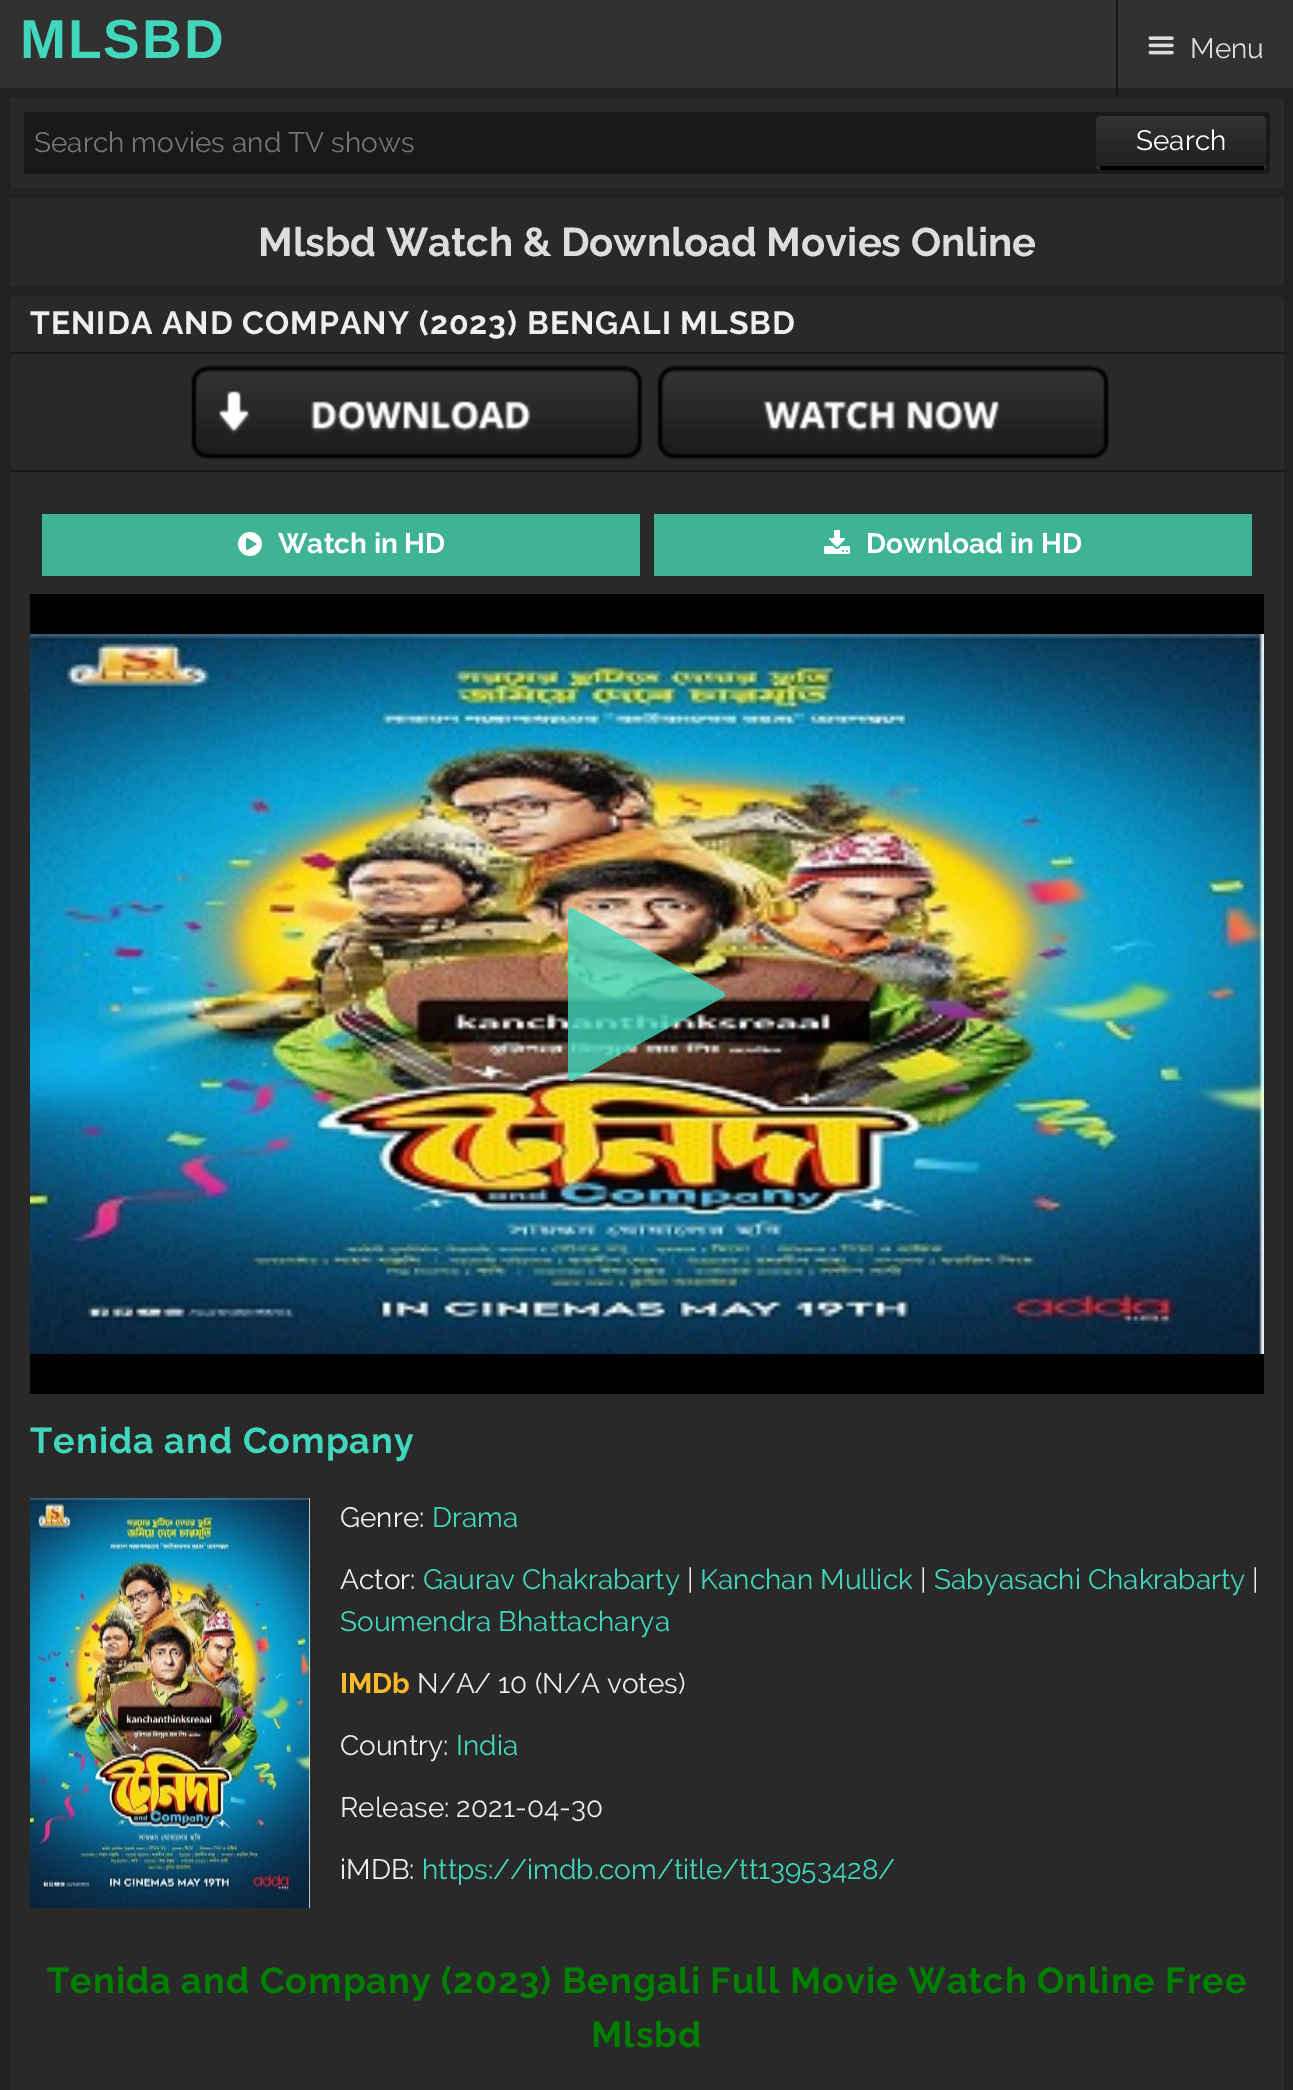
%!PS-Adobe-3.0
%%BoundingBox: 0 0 1293 2090
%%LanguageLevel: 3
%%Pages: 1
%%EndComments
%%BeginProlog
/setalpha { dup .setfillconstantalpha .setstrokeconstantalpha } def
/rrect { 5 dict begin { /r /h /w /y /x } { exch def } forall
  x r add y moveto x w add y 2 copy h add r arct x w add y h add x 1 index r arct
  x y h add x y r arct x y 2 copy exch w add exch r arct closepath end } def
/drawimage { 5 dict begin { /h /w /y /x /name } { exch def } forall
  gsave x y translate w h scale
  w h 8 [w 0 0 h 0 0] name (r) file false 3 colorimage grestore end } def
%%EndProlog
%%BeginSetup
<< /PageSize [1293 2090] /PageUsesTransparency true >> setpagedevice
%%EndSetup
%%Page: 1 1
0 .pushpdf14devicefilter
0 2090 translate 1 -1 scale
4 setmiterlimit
0.129 setgray
0 0 1293 2090 rectfill
0.192 setgray
0 0 1293 88 rectfill
0.086 setgray
1116 0 2 96 rectfill
(images/1.raw) 1148 36 26 19 drawimage
0.161 setgray
10 98 1274 90 rectfill
0.098 setgray
24 112 1246 62 rectfill
gsave
1096 116 170 54 6 rrect clip newpath
gsave newpath 1102 116 moveto 1260 116 lineto 1263.5 116 1266 118.5 1266 122 curveto 1266 166 lineto 1096 166 lineto 1096 122 lineto 1096 118.5 1098.5 116 1102 116 curveto closepath clip newpath
<< /ShadingType 2 /ColorSpace /DeviceRGB /Coords [1181 116 1181 166] /Extend [true true] /Function << /FunctionType 2 /Domain [0 1] /C0 [0.196 0.196 0.196] /C1 [0.129 0.129 0.129] /N 1 >> >> shfill grestore
gsave newpath 1096 166 moveto 1266 166 lineto 1266 170 lineto 1096 170 lineto closepath clip newpath
<< /ShadingType 2 /ColorSpace /DeviceRGB /Coords [1181 166 1181 216] /Extend [true true] /Function << /FunctionType 2 /Domain [0 1] /C0 [0.196 0.196 0.196] /C1 [0.129 0.129 0.129] /N 1 >> >> shfill grestore
grestore
0 setgray
1100 166 164 4 rectfill
0.161 setgray
10 198 1274 88 rectfill
10 296 1274 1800 6 rrect fill
0.086 setgray
10 352 1274 2 rectfill
10 470 1274 2 rectfill
(images/2.raw) 191 365 918 95 drawimage
0.243 0.706 0.584 setrgbcolor
42 514 598 62 rectfill
(images/3.raw) 238 532 24 24 drawimage
654 514 598 62 rectfill
(images/4.raw) 824 530 26 24 drawimage
0 setgray
30 594 1234 800 rectfill
(images/5.raw) 30 634 1234 720 drawimage
0.8 setalpha
0.251 0.843 0.737 setrgbcolor
newpath 722 998 moveto 574 1080 lineto 573 1081 571 1081 570 1081 curveto 569 1080 568 1079 568 1077 curveto 568 912 lineto 568 910 569 909 570 908 curveto 571 908 573 908 574 909 curveto 722 991 lineto 724 992 725 993 725 995 curveto 725 996 724 997 722 998 curveto closepath fill
1 setalpha
(images/6.raw) 30 1498 280 410 drawimage
/LiberationSans-Bold [55 0 0 -55 0 0] selectfont
20 58 moveto 2 0 (MLSBD) ashow
/Raleway-Regular [28 0 0 -28 0 0] selectfont
0.867 setgray
1190 58 moveto (Menu) show
0.459 setgray
34 152 moveto (Search movies and TV shows) show
1 setgray
1136 150 moveto (Search) show
/Raleway-Bold [40 0 0 -40 0 0] selectfont
0.867 setgray
258 256 moveto (Mlsbd Watch & Download Movies Online) show
/Raleway-Bold [32 0 0 -32 0 0] selectfont
0.933 setgray
30 334 moveto 1 0 (TENIDA AND COMPANY \(2023\) BENGALI MLSBD) ashow
/Raleway-Bold [28 0 0 -28 0 0] selectfont
1 setgray
278 553 moveto (Watch in HD) show
866 553 moveto (Download in HD) show
/Raleway-Bold [36 0 0 -36 0 0] selectfont
0.251 0.843 0.737 setrgbcolor
30 1453 moveto 1 0 (Tenida and Company) ashow
/Raleway-Regular [28 0 0 -28 0 0] selectfont
0.933 setgray
340 1527 moveto (Genre:) show
0.251 0.843 0.737 setrgbcolor
432 1527 moveto (Drama) show
0.933 setgray
340 1589 moveto (Actor:) show
0.251 0.843 0.737 setrgbcolor
423 1589 moveto (Gaurav Chakrabarty) show
0.933 setgray
687 1589 moveto (|) show
0.251 0.843 0.737 setrgbcolor
700 1589 moveto (Kanchan Mullick) show
0.933 setgray
920 1589 moveto (|) show
0.251 0.843 0.737 setrgbcolor
934 1589 moveto (Sabyasachi Chakrabarty) show
0.933 setgray
1252 1589 moveto (|) show
0.251 0.843 0.737 setrgbcolor
340 1631 moveto (Soumendra Bhattacharya) show
/Raleway-Bold [28 0 0 -28 0 0] selectfont
0.984 0.722 0.161 setrgbcolor
340 1693 moveto (IMDb) show
/Raleway-Regular [28 0 0 -28 0 0] selectfont
0.933 setgray
417 1693 moveto (N/A/ 10 \(N/A votes\)) show
340 1755 moveto (Country:) show
0.251 0.843 0.737 setrgbcolor
456 1755 moveto (India) show
0.933 setgray
340 1817 moveto (Release: 2021-04-30) show
340 1879 moveto (iMDB:) show
0.251 0.843 0.737 setrgbcolor
422 1879 moveto (https://imdb.com/title/tt13953428/) show
/Raleway-Bold [36 0 0 -36 0 0] selectfont
0 0.502 0 setrgbcolor
47 1993 moveto 1 0 (Tenida and Company \(2023\) Bengali Full Movie Watch Online Free) ashow
591 2047 moveto 1 0 (Mlsbd) ashow
.poppdf14devicefilter showpage
%%EOF
